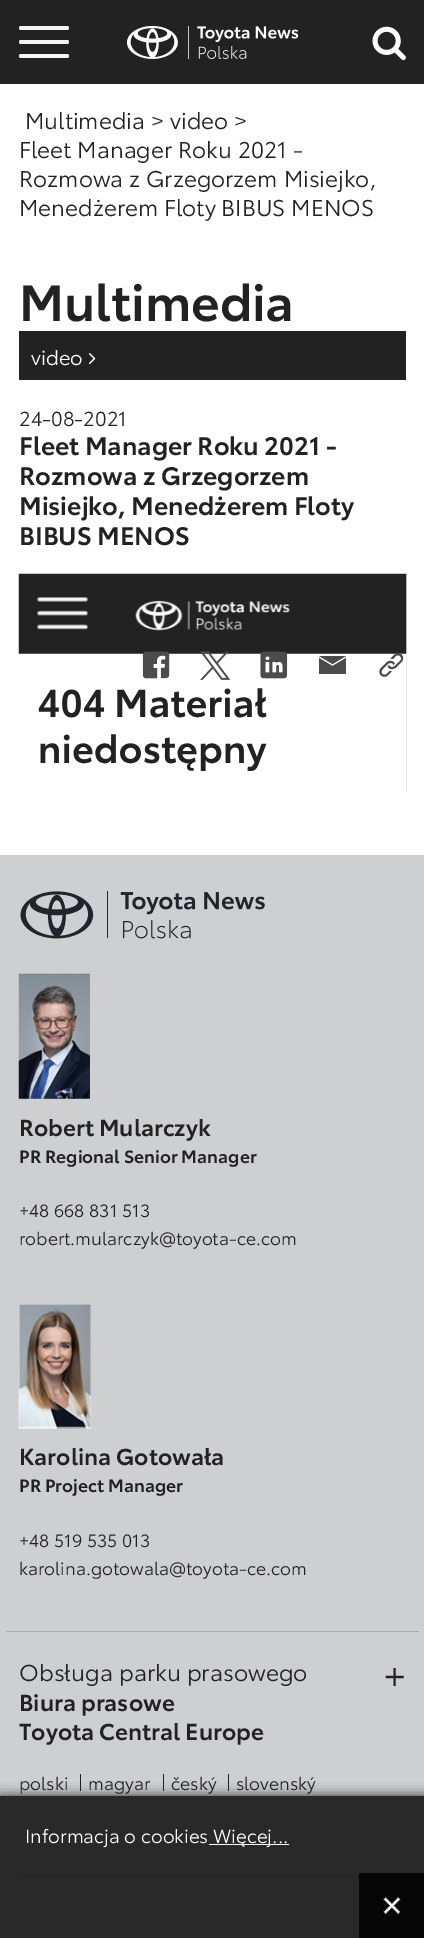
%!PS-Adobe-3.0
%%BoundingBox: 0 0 424 1938
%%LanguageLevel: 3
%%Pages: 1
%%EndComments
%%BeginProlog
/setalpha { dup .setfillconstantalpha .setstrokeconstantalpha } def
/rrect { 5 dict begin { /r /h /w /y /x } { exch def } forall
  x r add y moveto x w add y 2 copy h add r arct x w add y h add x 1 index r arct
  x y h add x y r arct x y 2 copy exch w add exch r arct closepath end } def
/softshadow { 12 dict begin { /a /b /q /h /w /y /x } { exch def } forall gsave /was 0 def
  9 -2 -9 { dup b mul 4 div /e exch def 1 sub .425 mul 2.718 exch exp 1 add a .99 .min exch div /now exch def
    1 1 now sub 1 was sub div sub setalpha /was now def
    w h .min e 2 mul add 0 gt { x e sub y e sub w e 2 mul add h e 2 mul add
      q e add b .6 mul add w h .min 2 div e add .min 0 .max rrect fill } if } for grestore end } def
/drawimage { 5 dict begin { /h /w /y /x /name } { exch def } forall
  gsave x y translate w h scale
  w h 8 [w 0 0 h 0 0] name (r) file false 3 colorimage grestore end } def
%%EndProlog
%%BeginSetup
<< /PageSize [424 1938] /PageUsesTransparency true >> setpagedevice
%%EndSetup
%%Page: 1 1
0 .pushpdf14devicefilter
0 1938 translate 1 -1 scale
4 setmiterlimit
1 setgray
0 0 424 1938 rectfill
0.133 setgray
0 0 424 84 rectfill
0.961 setgray
19 26 50 4 2 rrect fill
19 40 50 4 2 rrect fill
19 54 50 4 2 rrect fill
(images/1.raw) 126 25 173 34 drawimage
(images/2.raw) 372 26 34 35 drawimage
0.133 setgray
19 331 387 49 rectfill
(images/3.raw) 88 353 8 12 drawimage
(images/4.raw) 18 573 389 219 drawimage
(images/5.raw) 142 651 28 28 drawimage
(images/6.raw) 200 651 30 29 drawimage
(images/7.raw) 260 651 28 28 drawimage
0.298 setgray
newpath 319 656 moveto 332.5 664 lineto 346 656 lineto closepath 319 658 moveto 319 674 lineto 346 674 lineto 346 658 lineto 332.5 666 lineto closepath fill
(images/8.raw) 379 653 25 24 drawimage
0.808 0.812 0.816 setrgbcolor
0 855 424 1083 rectfill
(images/9.raw) 20 891 245 48 drawimage
(images/10.raw) 18 973 72 126 drawimage
(images/11.raw) 18 1303 74 126 drawimage
0.671 0.671 0.678 setrgbcolor
6 1631 413 1 rectfill
0.133 setgray
80 1774 1 17 rectfill
163 1774 1 17 rectfill
228 1774 1 17 rectfill
0.671 0.671 0.678 setrgbcolor
19 1876 340 1 rectfill
gsave
newpath 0 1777 moveto 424 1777 lineto 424 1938 lineto 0 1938 lineto closepath 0 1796 moveto 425 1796 lineto 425 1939 lineto 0 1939 lineto closepath eoclip newpath
0 setgray
0 1796 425 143 0 6 0.8 softshadow
grestore
0.8 setalpha
0 setgray
0 1796 424 142 rectfill
1 setalpha
1 setgray
209 1844 80 1 rectfill
0.024 setgray
359 1873 65 65 rectfill
(images/12.raw) 383 1897 18 17 drawimage
/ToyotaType-Regular [22.5 0 0 -22.5 0 0] selectfont
0.133 setgray
25 129 moveto (Multimedia > video) show
234 129 moveto (>) show
19 158 moveto (Fleet Manager Roku 2021 -) show
19 187 moveto (Rozmowa z Grzegorzem Misiejko,) show
19 216 moveto (Menedżerem Floty BIBUS MENOS) show
/ToyotaType-SemiBold [50 0 0 -50 0 0] selectfont
19 321 moveto (Multimedia) show
/ToyotaType-Regular [20 0 0 -20 0 0] selectfont
1 setgray
31 365 moveto (video) show
0.133 setgray
19 426 moveto (24-08-2021) show
/ToyotaType-SemiBold [25 0 0 -25 0 0] selectfont
19 455 moveto (Fleet Manager Roku 2021 -) show
19 485 moveto (Rozmowa z Grzegorzem) show
19 515 moveto (Misiejko, Menedżerem Floty) show
19 545 moveto (BIBUS MENOS) show
/ToyotaType-SemiBold [22.75 0 0 -22.75 0 0] selectfont
19 1136 moveto (Robert Mularczyk) show
/ToyotaType-SemiBold [17.5 0 0 -17.5 0 0] selectfont
19 1163 moveto (PR Regional Senior Manager) show
/ToyotaType-Regular [17.5 0 0 -17.5 0 0] selectfont
19 1217 moveto (+48 668 831 513) show
19 1245 moveto (robert.mularczyk@toyota-ce.com) show
/ToyotaType-SemiBold [22.75 0 0 -22.75 0 0] selectfont
19 1465 moveto (Karolina Gotowała) show
/ToyotaType-SemiBold [17.5 0 0 -17.5 0 0] selectfont
19 1492 moveto (PR Project Manager) show
/ToyotaType-Regular [17.5 0 0 -17.5 0 0] selectfont
19 1547 moveto (+48 519 535 013) show
19 1575 moveto (karolina.gotowala@toyota-ce.com) show
/ToyotaType-Regular [22.75 0 0 -22.75 0 0] selectfont
19 1681 moveto (Obsługa parku prasowego) show
/ToyotaType-Regular [40 0 0 -40 0 0] selectfont
383 1691 moveto (+) show
/ToyotaType-SemiBold [22.75 0 0 -22.75 0 0] selectfont
19 1711 moveto (Biura prasowe) show
19 1740 moveto (Toyota Central Europe) show
/ToyotaType-Regular [17.5 0 0 -17.5 0 0] selectfont
19 1790 moveto (polski) show
88 1790 moveto (magyar) show
171 1790 moveto (český) show
236 1790 moveto (slovenský) show
/ToyotaType-Regular [18.75 0 0 -18.75 0 0] selectfont
1 setgray
25 1843 moveto (Informacja o cookies) show
213 1843 moveto (Więcej...) show
.poppdf14devicefilter showpage
%%EOF
